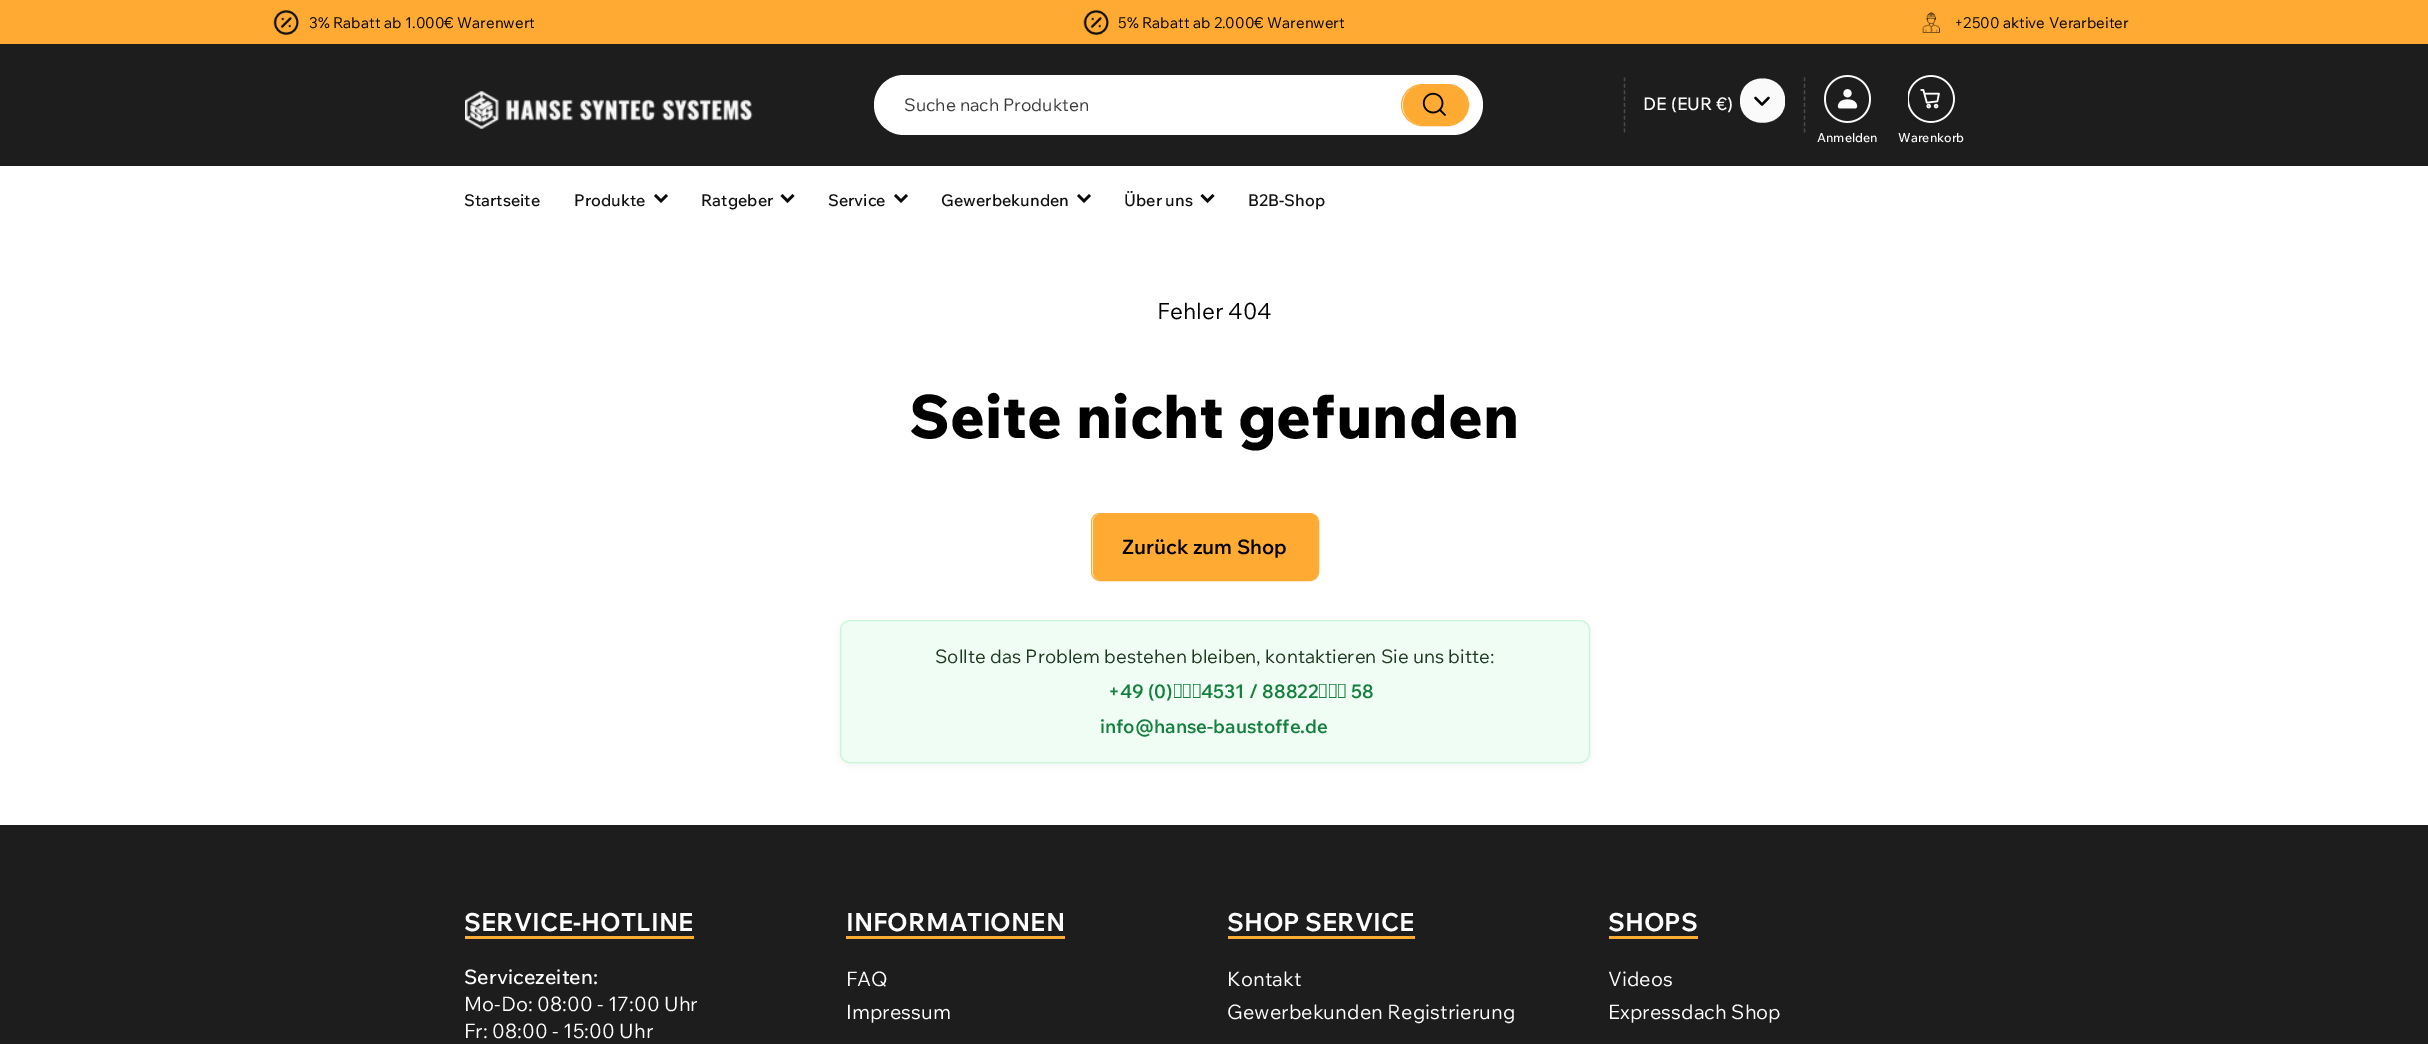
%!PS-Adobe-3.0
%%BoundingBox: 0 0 2428 1044
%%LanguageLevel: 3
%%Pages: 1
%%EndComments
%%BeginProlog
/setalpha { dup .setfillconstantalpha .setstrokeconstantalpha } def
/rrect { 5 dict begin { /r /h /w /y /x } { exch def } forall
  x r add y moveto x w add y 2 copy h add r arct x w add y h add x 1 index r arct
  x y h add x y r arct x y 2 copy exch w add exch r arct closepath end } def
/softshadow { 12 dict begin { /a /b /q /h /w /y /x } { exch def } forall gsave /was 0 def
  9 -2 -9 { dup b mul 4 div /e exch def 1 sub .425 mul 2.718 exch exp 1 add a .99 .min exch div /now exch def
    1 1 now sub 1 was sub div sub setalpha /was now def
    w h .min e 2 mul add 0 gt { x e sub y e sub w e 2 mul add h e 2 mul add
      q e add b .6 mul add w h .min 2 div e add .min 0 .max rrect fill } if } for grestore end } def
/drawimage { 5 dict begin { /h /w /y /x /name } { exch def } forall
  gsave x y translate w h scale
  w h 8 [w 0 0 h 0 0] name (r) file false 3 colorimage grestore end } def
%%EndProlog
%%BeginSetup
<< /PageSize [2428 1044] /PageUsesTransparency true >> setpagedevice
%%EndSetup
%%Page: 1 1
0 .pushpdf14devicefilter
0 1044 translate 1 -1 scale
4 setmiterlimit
1 setgray
0 0 2428 1044 rectfill
1 0.667 0.196 setrgbcolor
0 0 2428 44 rectfill
(images/1.raw) 273 10 26 25 drawimage
(images/2.raw) 1083 10 26 25 drawimage
(images/3.raw) 1922 12 18 21 drawimage
0.114 setgray
0 44 2428 122 rectfill
(images/4.raw) 465 91 288 38 drawimage
1 setgray
874 75 609 60 30 rrect fill
1 0.667 0.2 setrgbcolor
1401.5 84.5 67 41 20.5 rrect stroke
1403 85 65 40 20 rrect fill
(images/5.raw) 1422 92 24 24 drawimage
0.29 setgray
1.2 setlinewidth
[3.75 2.65] 0 setdash
newpath 1804.5 77.5 moveto 1804.5 132.5 lineto stroke
newpath 1624.5 77.5 moveto 1624.5 132.5 lineto stroke
0.98 setgray
newpath 1740 101 moveto 1740 72 1782 71 1785 98 curveto 1785 104 lineto 1782 130 1740 129 1740 101 curveto closepath fill
0 setgray
2.4 setlinewidth
1 setlinecap
1 setlinejoin
[] 0 setdash
newpath 1768.5 98 moveto 1762 104.5 lineto 1755.5 98 lineto stroke
(images/6.raw) 1824 75 47 48 drawimage
(images/7.raw) 1908 75 47 48 drawimage
0.039 setgray
2.5 setlinewidth
2 setlinecap
0 setlinejoin
newpath 666 196 moveto 661 201 lineto 656 196 lineto stroke
newpath 792.5 196 moveto 787.5 201 lineto 782.5 196 lineto stroke
newpath 906 196 moveto 901 201 lineto 896 196 lineto stroke
newpath 1089 196 moveto 1084 201 lineto 1079 196 lineto stroke
newpath 1212.5 196 moveto 1207.5 201 lineto 1202.5 196 lineto stroke
1 0.667 0.2 setrgbcolor
1 setlinewidth
0 setlinecap
1091.5 513.5 227 67 8.5 rrect stroke
1093 514 225 66 8 rrect fill
0 setgray
840 623 750 142 10 4 0.05 softshadow
0.941 0.992 0.957 setrgbcolor
840.5 620.5 749 142 9.5 rrect gsave fill grestore
0.776 0.965 0.835 setrgbcolor
stroke
0.114 setgray
0 825 2428 219 rectfill
1 0.667 0.196 setrgbcolor
465 936 229 3 rectfill
846 936 219 3 rectfill
1228 936 187 3 rectfill
1609 936 89 3 rectfill
/WixMadeforText-Regular [15 0 0 -15 0 0] selectfont
0 setgray
309 28 moveto (3% Rabatt ab 1.000€ Warenwert) show
1118 28 moveto (5% Rabatt ab 2.000€ Warenwert) show
1954 28 moveto (+2500 aktive Verarbeiter) show
/WixMadeforText-Regular [17.5 0 0 -17.5 0 0] selectfont
0.231 setgray
904 111 moveto (Suche nach Produkten) show
/WixMadeforText-Medium [17.5 0 0 -17.5 0 0] selectfont
1 setgray
1643 110 moveto (DE \(EUR €\)) show
/WixMadeforText-Medium [12.5 0 0 -12.5 0 0] selectfont
1817 142 moveto (Anmelden) show
1898 142 moveto (Warenkorb) show
/WixMadeforText-Medium [16.25 0 0 -16.25 0 0] selectfont
0.063 setgray
464 206 moveto (Startseite) show
574 206 moveto (Produkte) show
701 206 moveto (Ratgeber) show
828 206 moveto (Service) show
941 206 moveto (Gewerbekunden) show
1124 206 moveto (Über uns) show
1248 206 moveto (B2B-Shop) show
/WixMadeforText-Regular [22.5 0 0 -22.5 0 0] selectfont
0 setgray
1157 319 moveto (Fehler 404) show
/WixMadeforText-ExtraBold [60 0 0 -60 0 0] selectfont
909 438 moveto (Seite nicht gefunden) show
/WixMadeforText-SemiBold [20 0 0 -20 0 0] selectfont
1122 554 moveto (Zurück zum Shop) show
/WixMadeforText-Regular [18.75 0 0 -18.75 0 0] selectfont
0.118 0.227 0.118 setrgbcolor
935 663 moveto (Sollte das Problem bestehen bleiben, kontaktieren Sie uns bitte:) show
/WixMadeforText-SemiBold [18.75 0 0 -18.75 0 0] selectfont
0.082 0.502 0.239 setrgbcolor
1108 698 moveto (+49 \(0\) 4531 / 88822  58) show
1100 733 moveto (info@hanse-baustoffe.de) show
/WixMadeforText-Bold [25 0 0 -25 0 0] selectfont
1 setgray
464 931 moveto (SERVICE-HOTLINE) show
/WixMadeforText-Medium [20 0 0 -20 0 0] selectfont
464 984 moveto (Servicezeiten:) show
/WixMadeforText-Regular [20 0 0 -20 0 0] selectfont
464 1011 moveto (Mo-Do: 08:00 - 17:00 Uhr) show
464 1038 moveto (Fr: 08:00 - 15:00 Uhr) show
/WixMadeforText-Bold [25 0 0 -25 0 0] selectfont
846 931 moveto (INFORMATIONEN) show
/WixMadeforText-Regular [20 0 0 -20 0 0] selectfont
846 986 moveto (FAQ) show
846 1019 moveto (Impressum) show
/WixMadeforText-Bold [25 0 0 -25 0 0] selectfont
1227 931 moveto (SHOP SERVICE) show
/WixMadeforText-Regular [20 0 0 -20 0 0] selectfont
1227 986 moveto (Kontakt) show
1227 1019 moveto (Gewerbekunden Registrierung) show
/WixMadeforText-Bold [25 0 0 -25 0 0] selectfont
1608 931 moveto (SHOPS) show
/WixMadeforText-Regular [20 0 0 -20 0 0] selectfont
1608 986 moveto (Videos) show
1608 1019 moveto (Expressdach Shop) show
.poppdf14devicefilter showpage
%%EOF
